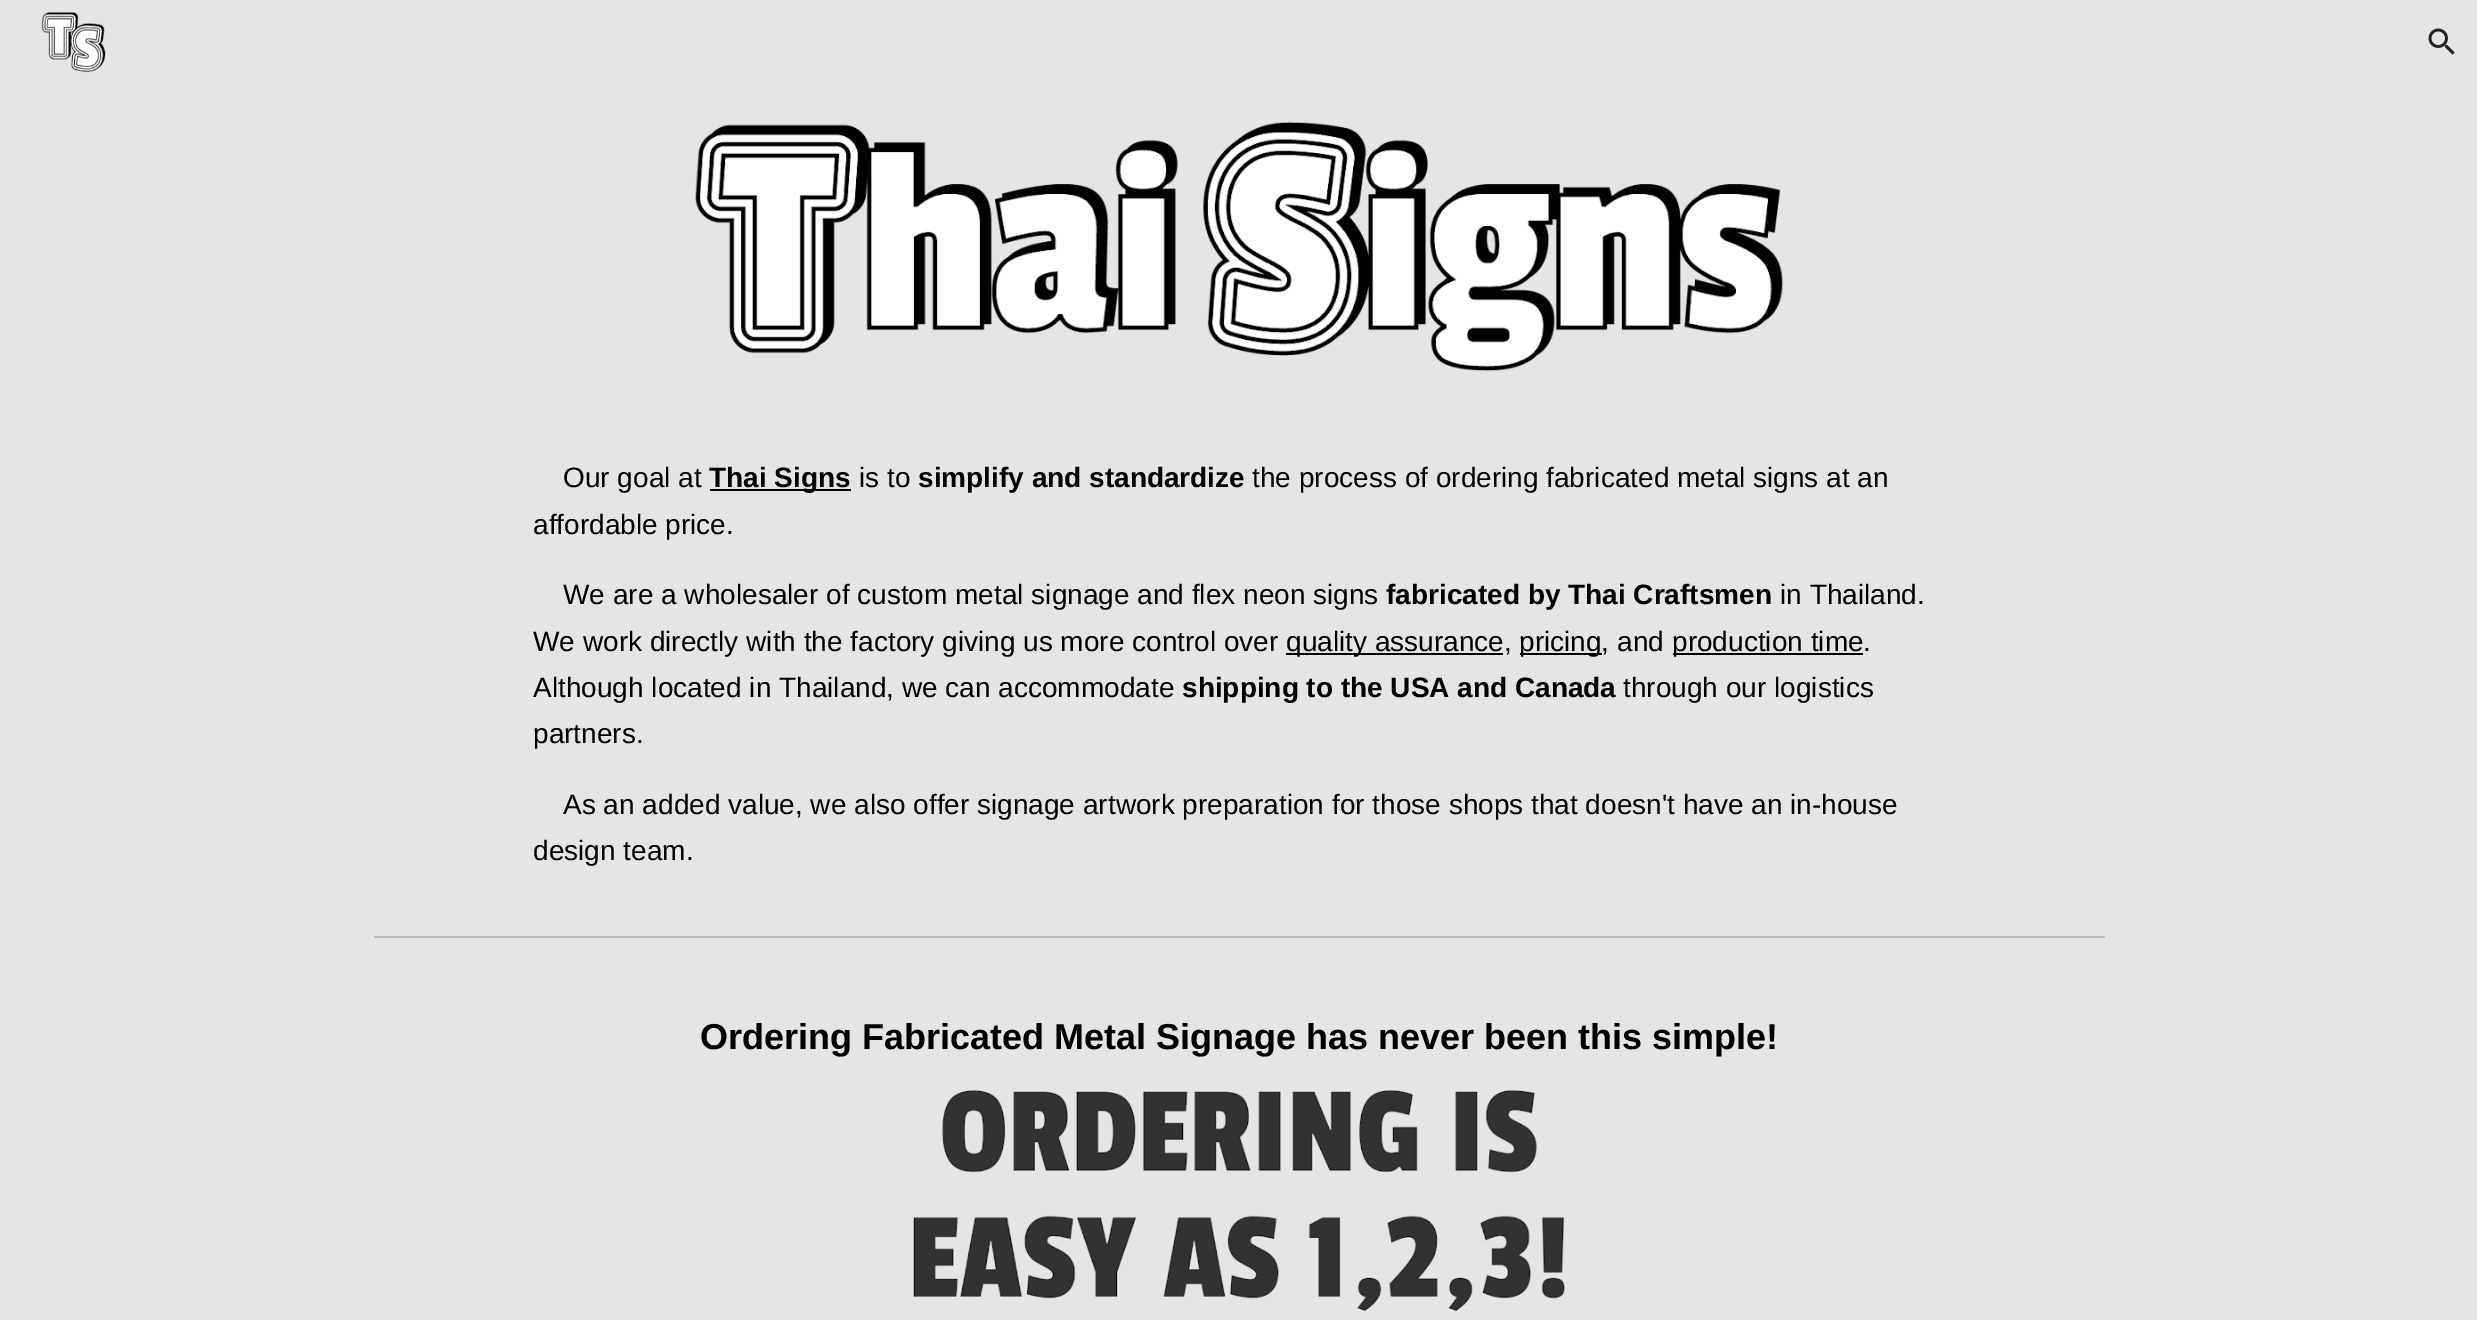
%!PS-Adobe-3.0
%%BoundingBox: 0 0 2477 1320
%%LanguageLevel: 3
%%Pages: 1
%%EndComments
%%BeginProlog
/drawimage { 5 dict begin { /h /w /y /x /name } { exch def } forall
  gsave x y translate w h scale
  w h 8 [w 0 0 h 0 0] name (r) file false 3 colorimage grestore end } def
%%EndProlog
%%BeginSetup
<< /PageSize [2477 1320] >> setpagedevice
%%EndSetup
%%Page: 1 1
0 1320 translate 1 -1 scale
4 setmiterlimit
0.898 setgray
0 0 2477 1320 rectfill
(images/1.raw) 41 12 65 61 drawimage
(images/2.raw) 2428 28 27 27 drawimage
(images/3.raw) 695 121 1088 250 drawimage
0 setgray
710 489 141 2 rectfill
1286 653 217 2 rectfill
1520 653 82 2 rectfill
1673 653 190 2 rectfill
0.737 setgray
374 936 1731 2 rectfill
(images/4.raw) 913 1090 652 221 drawimage
/LiberationSans-Regular [28 0 0 -28 0 0] selectfont
0 setgray
563 487 moveto (Our goal at) show
/LiberationSans-Bold [28 0 0 -28 0 0] selectfont
709 487 moveto (Thai Signs) show
/LiberationSans-Regular [28 0 0 -28 0 0] selectfont
859 487 moveto (is to) show
/LiberationSans-Bold [28 0 0 -28 0 0] selectfont
918 487 moveto (simplify and standardize) show
/LiberationSans-Regular [28 0 0 -28 0 0] selectfont
1252 487 moveto (the process of ordering fabricated metal signs at an) show
533 534 moveto (affordable price.) show
563 604 moveto (We are a wholesaler of custom metal signage and flex neon signs) show
/LiberationSans-Bold [28 0 0 -28 0 0] selectfont
1386 604 moveto (fabricated by Thai Craftsmen) show
/LiberationSans-Regular [28 0 0 -28 0 0] selectfont
1780 604 moveto (in Thailand.) show
533 651 moveto (We work directly with the factory giving us more control over) show
1286 651 moveto (quality assurance,) show
1519 651 moveto (pricing, and) show
1672 651 moveto (production time.) show
533 697 moveto (Although located in Thailand, we can accommodate) show
/LiberationSans-Bold [28 0 0 -28 0 0] selectfont
1182 697 moveto (shipping to the USA and Canada) show
/LiberationSans-Regular [28 0 0 -28 0 0] selectfont
1623 697 moveto (through our logistics) show
533 743 moveto (partners.) show
563 814 moveto (As an added value, we also offer signage artwork preparation for those shops that doesn't have an in-house) show
533 860 moveto (design team.) show
/LiberationSans-Bold [36 0 0 -36 0 0] selectfont
700 1049 moveto (Ordering Fabricated Metal Signage has never been this simple!) show
showpage
%%EOF
